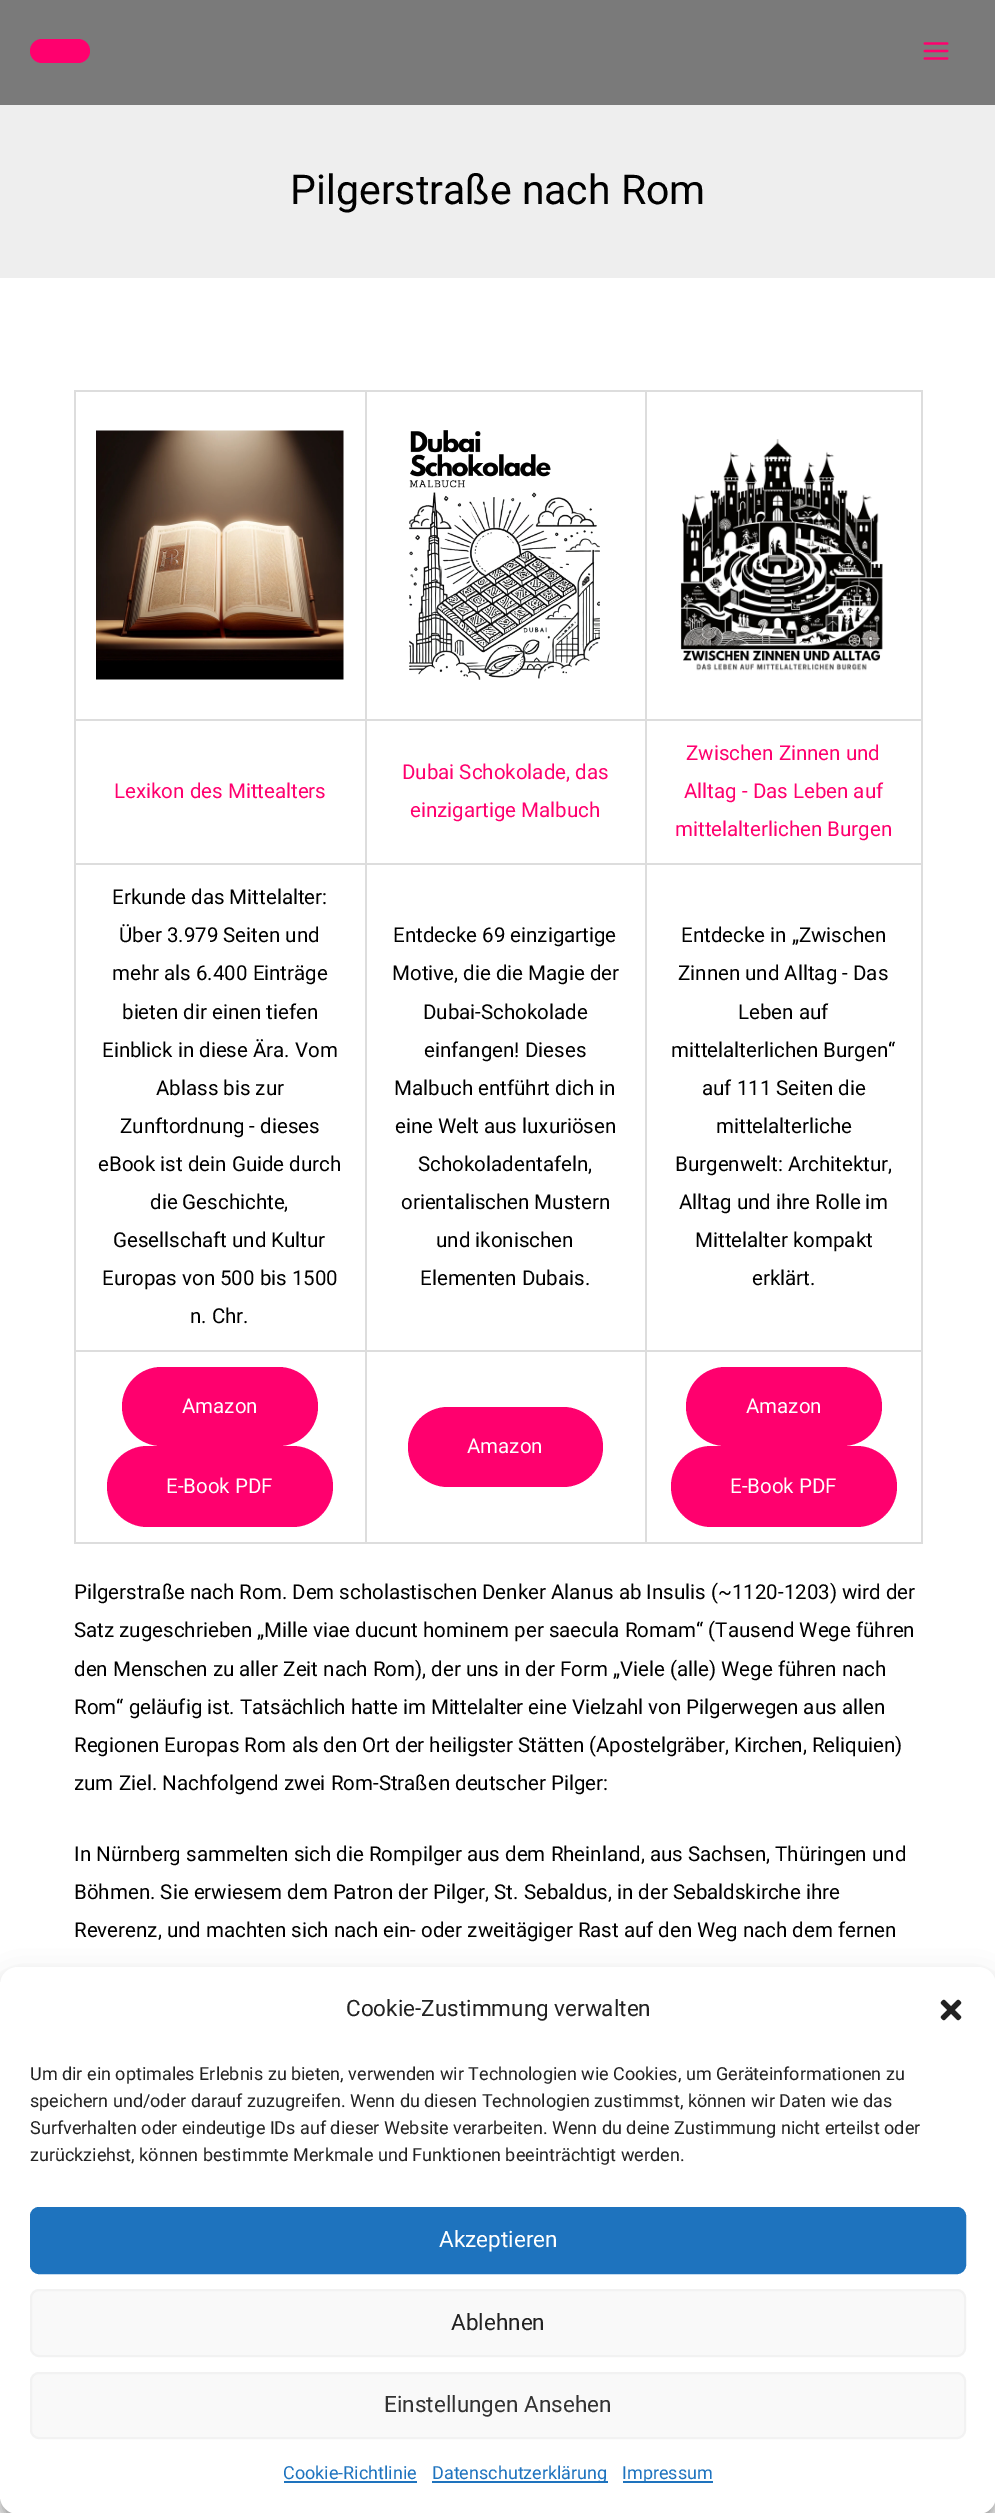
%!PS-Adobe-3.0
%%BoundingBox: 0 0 995 2513
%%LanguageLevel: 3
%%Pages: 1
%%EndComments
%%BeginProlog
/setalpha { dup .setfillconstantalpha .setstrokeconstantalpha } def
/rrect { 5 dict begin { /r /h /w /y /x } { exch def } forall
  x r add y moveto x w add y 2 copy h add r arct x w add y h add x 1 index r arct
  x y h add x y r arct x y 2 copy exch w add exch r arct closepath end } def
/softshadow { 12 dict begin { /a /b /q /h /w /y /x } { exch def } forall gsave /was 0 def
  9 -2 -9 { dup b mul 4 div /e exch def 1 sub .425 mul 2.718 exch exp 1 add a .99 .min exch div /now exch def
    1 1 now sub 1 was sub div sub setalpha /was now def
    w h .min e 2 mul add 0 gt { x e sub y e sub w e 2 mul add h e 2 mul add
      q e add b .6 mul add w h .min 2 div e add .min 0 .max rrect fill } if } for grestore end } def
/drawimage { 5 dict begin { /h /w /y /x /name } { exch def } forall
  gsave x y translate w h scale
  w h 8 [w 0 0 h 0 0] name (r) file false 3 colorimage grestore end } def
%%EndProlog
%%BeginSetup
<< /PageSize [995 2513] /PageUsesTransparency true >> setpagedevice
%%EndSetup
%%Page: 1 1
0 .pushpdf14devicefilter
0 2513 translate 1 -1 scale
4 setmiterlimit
1 setgray
0 0 995 2513 rectfill
0.478 setgray
0 0 995 105 rectfill
1 0 0.431 setrgbcolor
30 39 60 24 12 rrect fill
(images/1.raw) 923 42 26 18 drawimage
0.933 setgray
0 105 995 173 rectfill
0.867 setgray
74 390 849 2 rectfill
74 390 2 1154 rectfill
365 392 2 328 rectfill
75 719 291 2 rectfill
(images/2.raw) 96 430 248 250 drawimage
645 392 2 328 rectfill
366 719 281 2 rectfill
(images/3.raw) 409 430 191 250 drawimage
921 392 2 328 rectfill
647 719 276 2 rectfill
(images/4.raw) 680 439 203 232 drawimage
365 720 2 144 rectfill
75 863 291 2 rectfill
645 720 2 144 rectfill
366 863 281 2 rectfill
921 720 2 144 rectfill
647 863 276 2 rectfill
365 864 2 680 rectfill
75 1350 291 2 rectfill
645 864 2 680 rectfill
366 1350 281 2 rectfill
921 864 2 680 rectfill
647 1350 276 2 rectfill
75 1542 848 2 rectfill
1 0 0.431 setrgbcolor
122 1367 196 79 39.5 rrect fill
107 1446 226 81 40.5 rrect fill
408 1407 195 80 40 rrect fill
686 1367 196 79 39.5 rrect fill
671 1446 226 81 40.5 rrect fill
0 setgray
0 1976 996 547 18 4.5 0.23 softshadow
0 1982 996 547 18 15 0.19 softshadow
1 setgray
0 1967 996 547 18 rrect fill
(images/5.raw) 940 1999 22 22 drawimage
0.118 0.451 0.745 setrgbcolor
31 2208 934 65 8 rrect gsave fill grestore
2 setlinewidth
stroke
0.976 setgray
31 2290 934 66 8 rrect gsave fill grestore
0.949 setgray
stroke
0.976 setgray
31 2373 934 65 8 rrect gsave fill grestore
0.949 setgray
stroke
0.118 0.451 0.745 setrgbcolor
284 2481 133 2 rectfill
432 2481 176 2 rectfill
623 2481 90 2 rectfill
/Roboto-Regular [41 0 0 -41 0 0] selectfont
0 setgray
290 204 moveto (Pilgerstraße nach Rom) show
/Roboto-Regular [20.5 0 0 -20.5 0 0] selectfont
1 0 0.431 setrgbcolor
114 798 moveto (Lexikon des Mittealters) show
402 779 moveto (Dubai Schokolade, das) show
410 817 moveto (einzigartige Malbuch) show
686 760 moveto (Zwischen Zinnen und) show
684 798 moveto (Alltag - Das Leben auf) show
675 836 moveto (mittelalterlichen Burgen) show
0 setgray
112 904 moveto (Erkunde das Mittelalter:) show
119 942 moveto (Über 3.979 Seiten und) show
112 980 moveto (mehr als 6.400 Einträge) show
122 1019 moveto (bieten dir einen tiefen) show
102 1057 moveto (Einblick in diese Ära. Vom) show
156 1095 moveto (Ablass bis zur) show
120 1133 moveto (Zunftordnung - dieses) show
98 1171 moveto (eBook ist dein Guide durch) show
150 1209 moveto (die Geschichte,) show
113 1247 moveto (Gesellschaft und Kultur) show
102 1285 moveto (Europas von 500 bis 1500) show
190 1323 moveto (n. Chr.) show
393 942 moveto (Entdecke 69 einzigartige) show
392 980 moveto (Motive, die die Magie der) show
423 1019 moveto (Dubai-Schokolade) show
424 1057 moveto (einfangen! Dieses) show
394 1095 moveto (Malbuch entführt dich in) show
395 1133 moveto (eine Welt aus luxuriösen) show
418 1171 moveto (Schokoladentafeln,) show
401 1209 moveto (orientalischen Mustern) show
436 1247 moveto (und ikonischen) show
420 1285 moveto (Elementen Dubais.) show
681 942 moveto (Entdecke in „Zwischen) show
678 980 moveto (Zinnen und Alltag - Das) show
738 1019 moveto (Leben auf) show
671 1057 moveto (mittelalterlichen Burgen“) show
702 1095 moveto (auf 111 Seiten die) show
716 1133 moveto (mittelalterliche) show
675 1171 moveto (Burgenwelt: Architektur,) show
679 1209 moveto (Alltag und ihre Rolle im) show
695 1247 moveto (Mittelalter kompakt) show
752 1285 moveto (erklärt.) show
1 setgray
182 1413 moveto (Amazon) show
166 1493 moveto (E-Book PDF) show
467 1453 moveto (Amazon) show
746 1413 moveto (Amazon) show
730 1493 moveto (E-Book PDF) show
0 setgray
74 1599 moveto (Pilgerstraße nach Rom. Dem scholastischen Denker Alanus ab Insulis \(~1120-1203\) wird der) show
74 1637 moveto (Satz zugeschrieben „Mille viae ducunt hominem per saecula Romam“ \(Tausend Wege führen) show
74 1676 moveto (den Menschen zu aller Zeit nach Rom\), der uns in der Form „Viele \(alle\) Wege führen nach) show
74 1714 moveto (Rom“ geläufig ist. Tatsächlich hatte im Mittelalter eine Vielzahl von Pilgerwegen aus allen) show
74 1752 moveto (Regionen Europas Rom als den Ort der heiligster Stätten \(Apostelgräber, Kirchen, Reliquien\)) show
74 1790 moveto (zum Ziel. Nachfolgend zwei Rom-Straßen deutscher Pilger:) show
74 1861 moveto (In Nürnberg sammelten sich die Rompilger aus dem Rheinland, aus Sachsen, Thüringen und) show
74 1899 moveto (Böhmen. Sie erwiesem dem Patron der Pilger, St. Sebaldus, in der Sebaldskirche ihre) show
74 1937 moveto (Reverenz, und machten sich nach ein- oder zweitägiger Rast auf den Weg nach dem fernen) show
/Roboto-Regular [22.5 0 0 -22.5 0 0] selectfont
0.133 setgray
346 2016 moveto (Cookie-Zustimmung verwalten) show
/Roboto-Regular [18 0 0 -18 0 0] selectfont
30 2080 moveto (Um dir ein optimales Erlebnis zu bieten, verwenden wir Technologien wie Cookies, um Geräteinformationen zu) show
30 2107 moveto (speichern und/oder darauf zuzugreifen. Wenn du diesen Technologien zustimmst, können wir Daten wie das) show
30 2134 moveto (Surfverhalten oder eindeutige IDs auf dieser Website verarbeiten. Wenn du deine Zustimmung nicht erteilst oder) show
30 2161 moveto (zurückziehst, können bestimmte Merkmale und Funktionen beeinträchtigt werden.) show
/Roboto-Regular [22.5 0 0 -22.5 0 0] selectfont
1 setgray
439 2247 moveto (Akzeptieren) show
0.133 setgray
451 2330 moveto (Ablehnen) show
0.2 setgray
384 2412 moveto (Einstellungen Ansehen) show
/Roboto-Regular [18 0 0 -18 0 0] selectfont
0.118 0.451 0.745 setrgbcolor
283 2479 moveto (Cookie-Richtlinie) show
432 2479 moveto (Datenschutzerklärung) show
622 2479 moveto (Impressum) show
.poppdf14devicefilter showpage
%%EOF
